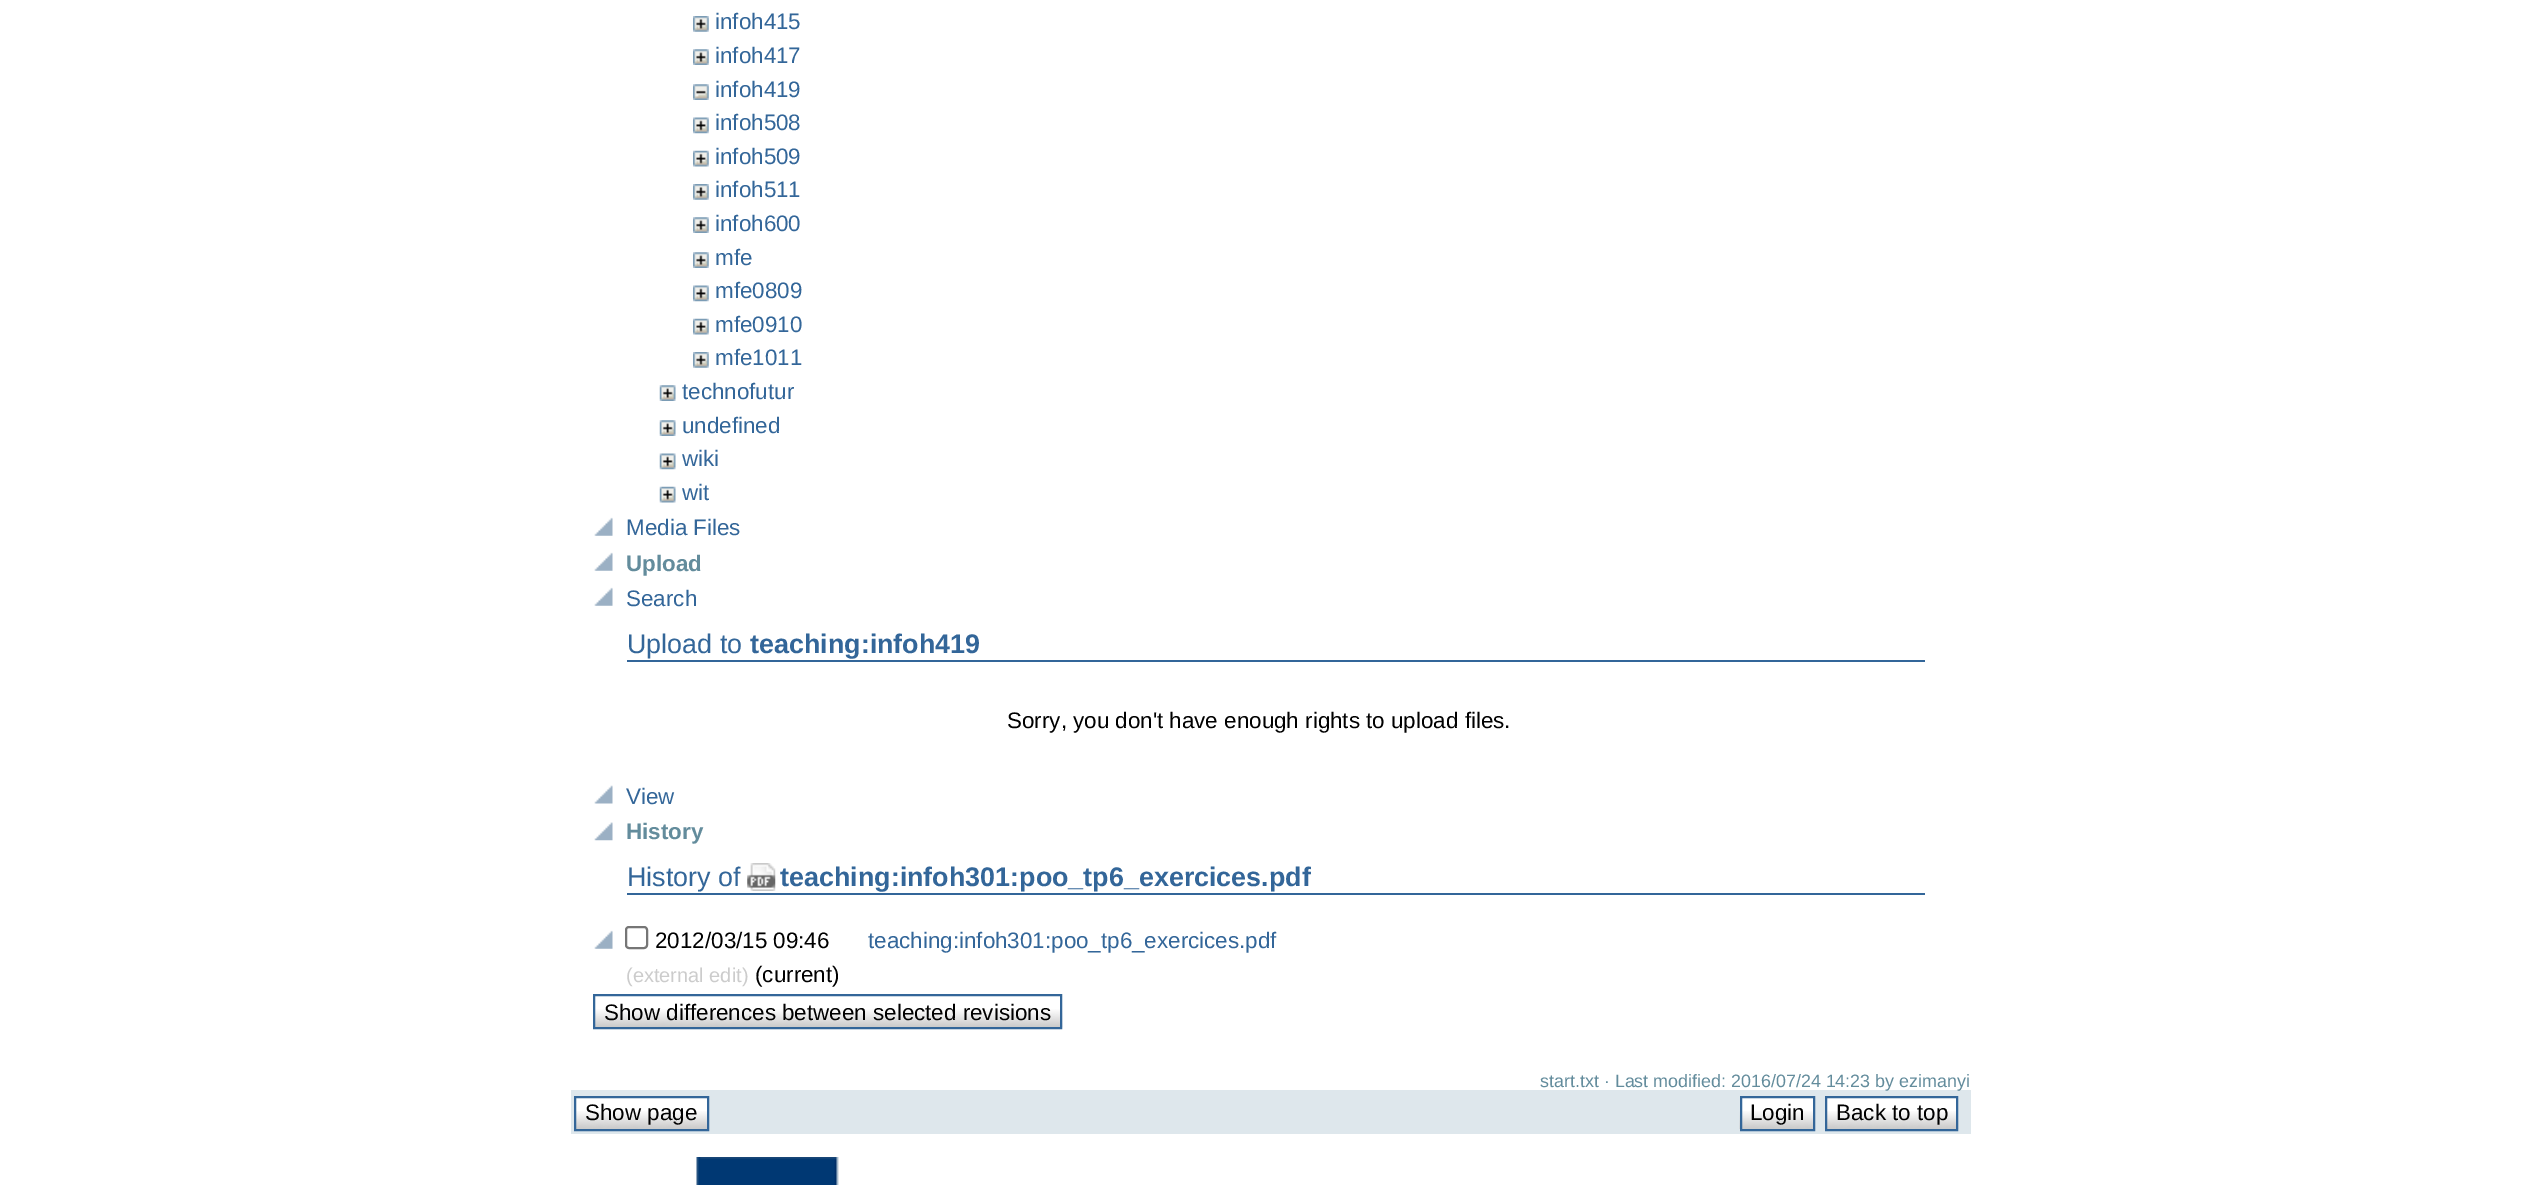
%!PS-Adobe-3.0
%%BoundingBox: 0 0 2539 1185
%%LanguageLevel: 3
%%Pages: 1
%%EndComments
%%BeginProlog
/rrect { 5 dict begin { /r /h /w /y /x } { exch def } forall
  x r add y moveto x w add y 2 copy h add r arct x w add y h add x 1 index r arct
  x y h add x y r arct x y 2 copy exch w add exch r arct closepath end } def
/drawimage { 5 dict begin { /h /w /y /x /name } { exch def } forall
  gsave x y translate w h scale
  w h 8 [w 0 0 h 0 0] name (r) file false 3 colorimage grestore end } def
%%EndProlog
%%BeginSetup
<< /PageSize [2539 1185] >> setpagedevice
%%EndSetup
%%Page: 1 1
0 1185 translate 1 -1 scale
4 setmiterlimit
1 setgray
0 0 2539 1185 rectfill
(images/1.raw) 693 16 16 16 drawimage
(images/2.raw) 693 49 16 16 drawimage
(images/3.raw) 693 84 16 16 drawimage
(images/4.raw) 693 117 16 17 drawimage
(images/5.raw) 693 150 16 17 drawimage
(images/1.raw) 693 184 16 16 drawimage
(images/2.raw) 693 217 16 16 drawimage
(images/2.raw) 693 252 16 16 drawimage
(images/4.raw) 693 285 16 17 drawimage
(images/5.raw) 693 318 16 17 drawimage
(images/1.raw) 693 352 16 16 drawimage
(images/6.raw) 659 385 17 16 drawimage
(images/6.raw) 659 420 17 16 drawimage
(images/7.raw) 659 453 17 17 drawimage
(images/8.raw) 659 486 17 17 drawimage
(images/9.raw) 594 517 19 19 drawimage
(images/9.raw) 594 552 19 19 drawimage
(images/9.raw) 594 587 19 19 drawimage
0.2 0.4 0.6 setrgbcolor
627 660 1298 2 rectfill
(images/10.raw) 594 785 19 19 drawimage
(images/11.raw) 594 822 19 19 drawimage
627 893 1298 2 rectfill
(images/12.raw) 747 863 29 28 drawimage
(images/13.raw) 594 930 19 19 drawimage
0.463 setgray
2 setlinewidth
626 927 21 21 3 rrect stroke
(images/14.raw) 595 1009 468 19 drawimage
0.2 0.4 0.6 setrgbcolor
594 995 467 33 rectstroke
0.871 0.906 0.925 setrgbcolor
571 1090 1400 44 rectfill
1 setgray
576 1098 131 30 rectfill
(images/15.raw) 576 1111 131 18 drawimage
0.2 0.4 0.6 setrgbcolor
575 1097 133 33 rectstroke
1 setgray
1742 1098 71 30 rectfill
(images/16.raw) 1739 1111 74 18 drawimage
0.2 0.4 0.6 setrgbcolor
1741 1097 73 33 rectstroke
1 setgray
1827 1098 129 30 rectfill
(images/17.raw) 1827 1111 132 18 drawimage
0.2 0.4 0.6 setrgbcolor
1826 1097 131 33 rectstroke
(images/18.raw) 696 1157 143 28 drawimage
/LiberationSans-Regular [22.4 0 0 -22.4 0 0] selectfont
715 29 moveto (infoh415) show
715 63 moveto (infoh417) show
715 97 moveto (infoh419) show
715 130 moveto (infoh508) show
715 164 moveto (infoh509) show
715 197 moveto (infoh511) show
715 231 moveto (infoh600) show
715 265 moveto (mfe) show
715 298 moveto (mfe0809) show
715 332 moveto (mfe0910) show
715 365 moveto (mfe1011) show
682 399 moveto (technofutur) show
682 433 moveto (undefined) show
682 466 moveto (wiki) show
682 500 moveto (wit) show
626 535 moveto (Media Files) show
/LiberationSans-Bold [22.4 0 0 -22.4 0 0] selectfont
0.388 0.549 0.612 setrgbcolor
626 571 moveto (Upload) show
/LiberationSans-Regular [22.4 0 0 -22.4 0 0] selectfont
0.2 0.4 0.6 setrgbcolor
626 606 moveto (Search) show
/LiberationSans-Regular [26.9 0 0 -26.9 0 0] selectfont
627 653 moveto (Upload to) show
/LiberationSans-Bold [26.9 0 0 -26.9 0 0] selectfont
750 653 moveto (teaching:infoh419) show
/LiberationSans-Regular [22.4 0 0 -22.4 0 0] selectfont
0 setgray
1007 728 moveto (Sorry, you don't have enough rights to upload files.) show
0.2 0.4 0.6 setrgbcolor
626 804 moveto (View) show
/LiberationSans-Bold [22.4 0 0 -22.4 0 0] selectfont
0.388 0.549 0.612 setrgbcolor
626 839 moveto (History) show
/LiberationSans-Regular [26.9 0 0 -26.9 0 0] selectfont
0.2 0.4 0.6 setrgbcolor
627 886 moveto (History of) show
/LiberationSans-Bold [26.9 0 0 -26.9 0 0] selectfont
780 886 moveto (teaching:infoh301:poo_tp6_exercices.pdf) show
/LiberationSans-Regular [22.4 0 0 -22.4 0 0] selectfont
0 setgray
655 948 moveto (2012/03/15 09:46) show
0.2 0.4 0.6 setrgbcolor
868 948 moveto (teaching:infoh301:poo_tp6_exercices.pdf) show
/LiberationSans-Regular [20 0 0 -20 0 0] selectfont
0.8 setgray
626 982 moveto (\(external edit\)) show
/LiberationSans-Regular [22.4 0 0 -22.4 0 0] selectfont
0 setgray
755 982 moveto (\(current\)) show
604 1020 moveto (Show differences between selected revisions) show
/LiberationSans-Regular [17.9 0 0 -17.9 0 0] selectfont
0.388 0.549 0.612 setrgbcolor
1540 1087 moveto (start.txt · Last modified: 2016/07/24 14:23 by ezimanyi) show
/LiberationSans-Regular [22.4 0 0 -22.4 0 0] selectfont
0 setgray
585 1120 moveto (Show page) show
1750 1120 moveto (Login) show
1836 1120 moveto (Back to top) show
showpage
%%EOF
